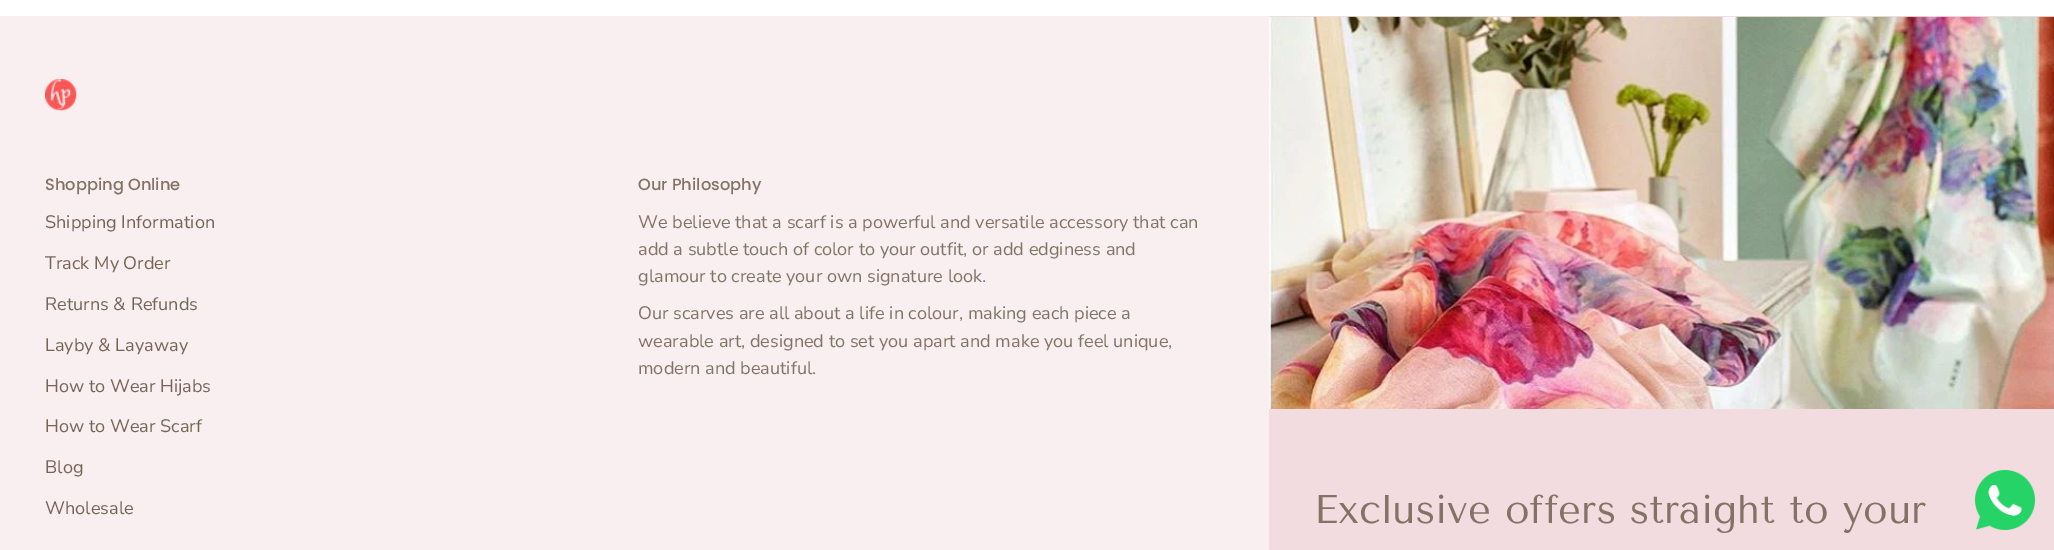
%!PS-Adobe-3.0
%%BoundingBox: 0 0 2054 550
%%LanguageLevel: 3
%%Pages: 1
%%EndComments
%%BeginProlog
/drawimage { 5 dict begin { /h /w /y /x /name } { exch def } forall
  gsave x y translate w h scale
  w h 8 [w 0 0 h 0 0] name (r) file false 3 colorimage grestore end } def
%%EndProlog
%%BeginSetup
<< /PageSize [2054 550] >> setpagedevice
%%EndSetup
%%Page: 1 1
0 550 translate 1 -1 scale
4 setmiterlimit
1 setgray
0 0 2054 550 rectfill
0.976 0.937 0.941 setrgbcolor
0 16 1269 534 rectfill
(images/1.raw) 45 79 32 32 drawimage
0.949 0.863 0.875 setrgbcolor
1269 16 785 534 rectfill
(images/2.raw) 1269 16 785 393 drawimage
(images/3.raw) 1975 470 60 60 drawimage
/Poppins-Medium [16.25 0 0 -16.25 0 0] selectfont
0.514 0.447 0.396 setrgbcolor
45 190 moveto (Shopping Online) show
/NunitoSans-Regular [18.1 0 0 -18.1 0 0] selectfont
0.463 0.392 0.337 setrgbcolor
45 228 moveto (Shipping Information) show
45 269 moveto (Track My Order) show
45 310 moveto (Returns & Refunds) show
45 351 moveto (Layby & Layaway) show
45 392 moveto (How to Wear Hijabs) show
45 432 moveto (How to Wear Scarf) show
45 473 moveto (Blog) show
45 514 moveto (Wholesale) show
/Poppins-Medium [16.25 0 0 -16.25 0 0] selectfont
0.514 0.447 0.396 setrgbcolor
638 190 moveto (Our Philosophy) show
/NunitoSans-Regular [18.1 0 0 -18.1 0 0] selectfont
638 228 moveto (We believe that a scarf is a powerful and versatile accessory that can) show
638 255 moveto (add a subtle touch of color to your outfit, or add edginess and) show
638 282 moveto (glamour to create your own signature look.) show
638 319 moveto (Our scarves are all about a life in colour, making each piece a) show
638 347 moveto (wearable art, designed to set you apart and make you feel unique,) show
638 374 moveto (modern and beautiful.) show
/TenorSans-Regular [40 0 0 -40 0 0] selectfont
1314 523 moveto (Exclusive offers straight to your) show
showpage
%%EOF
